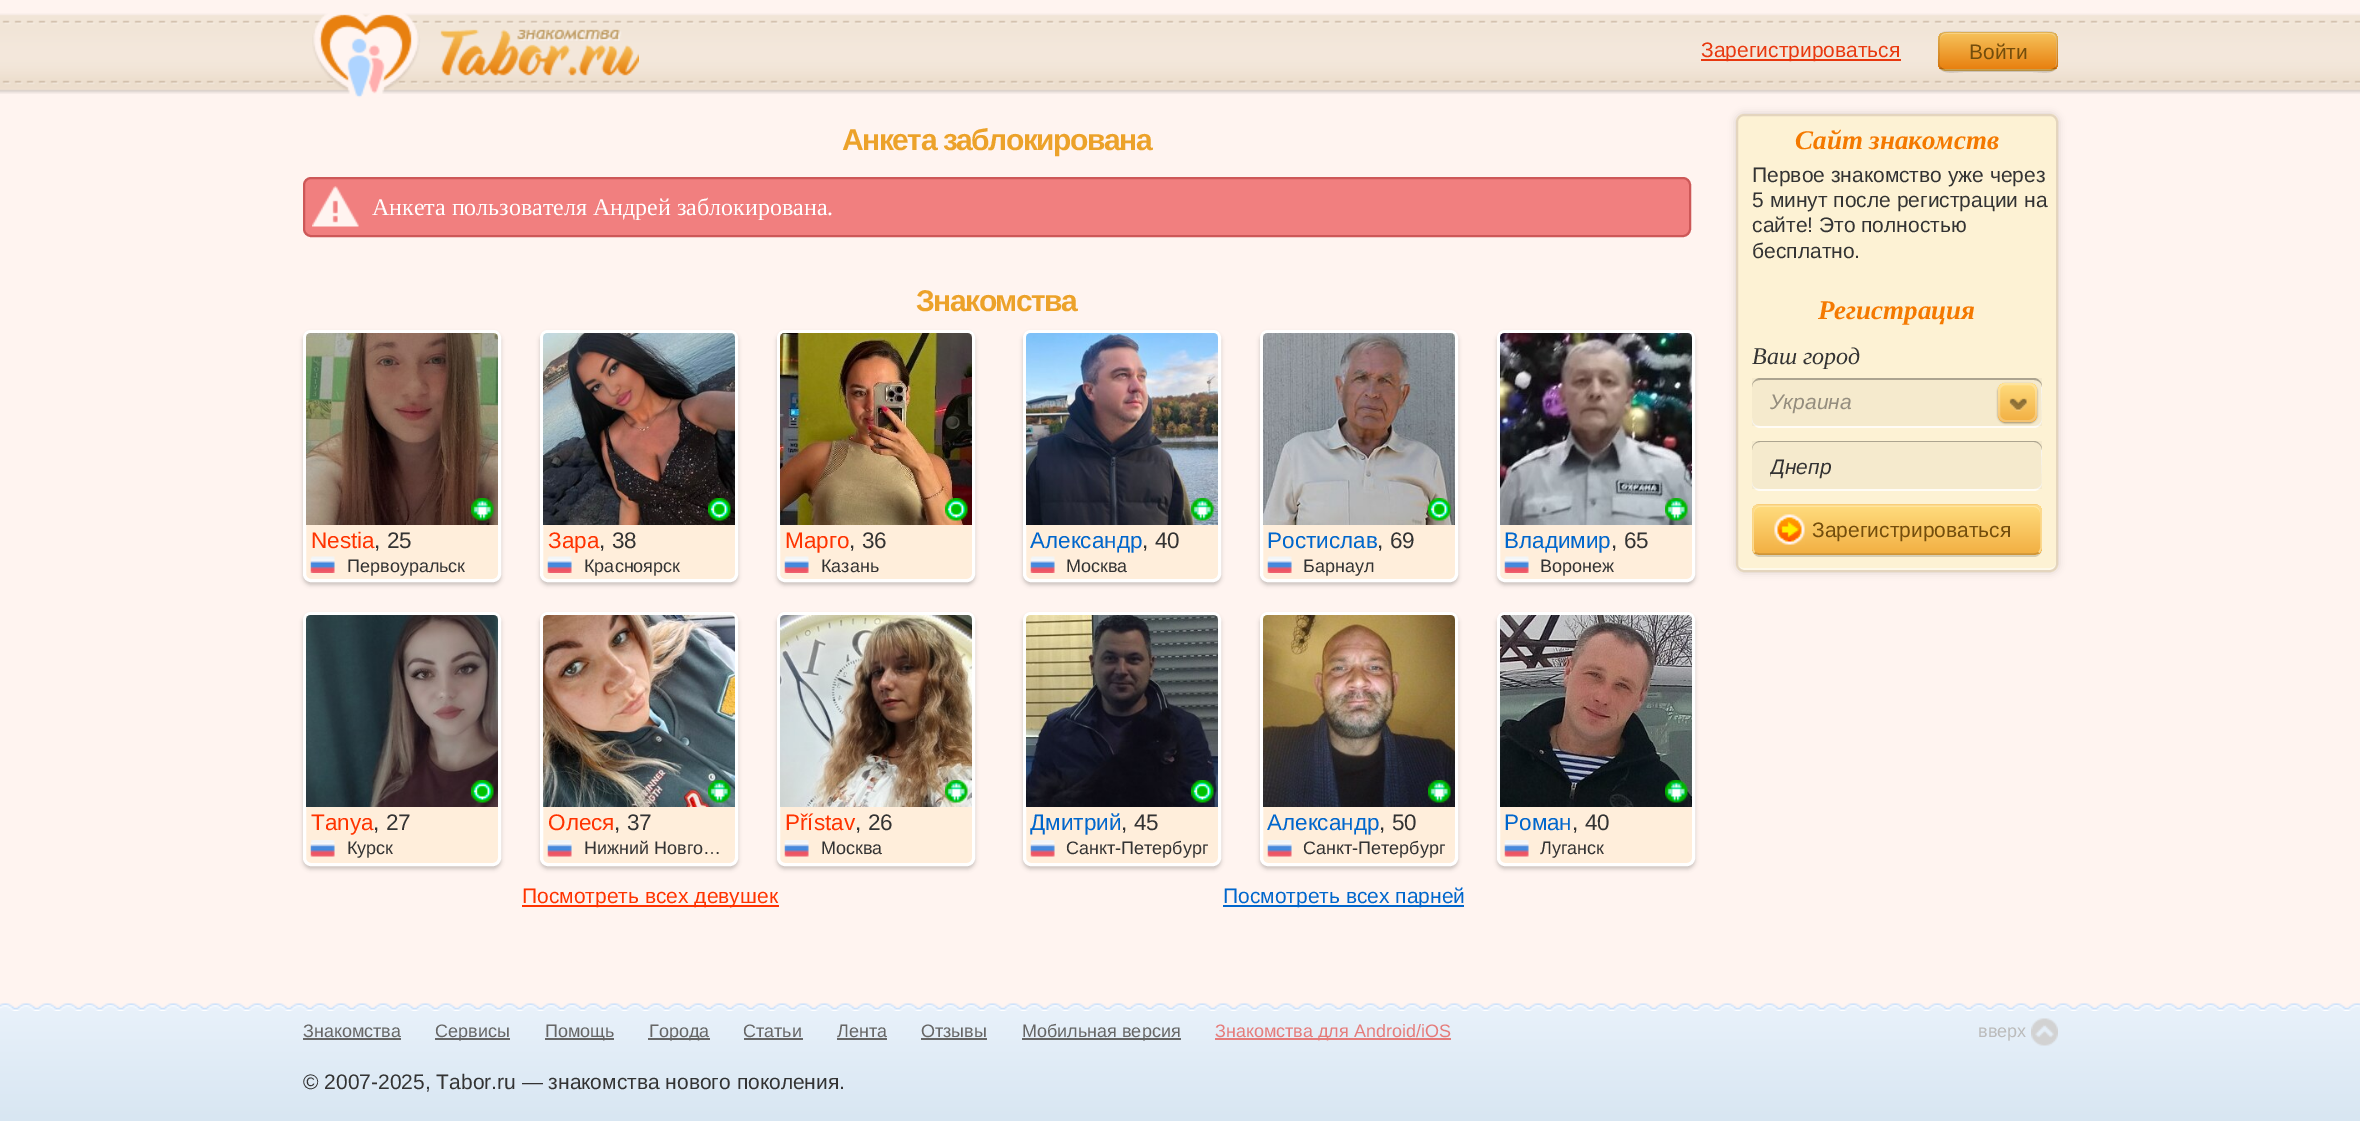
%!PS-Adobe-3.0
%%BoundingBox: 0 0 2360 1121
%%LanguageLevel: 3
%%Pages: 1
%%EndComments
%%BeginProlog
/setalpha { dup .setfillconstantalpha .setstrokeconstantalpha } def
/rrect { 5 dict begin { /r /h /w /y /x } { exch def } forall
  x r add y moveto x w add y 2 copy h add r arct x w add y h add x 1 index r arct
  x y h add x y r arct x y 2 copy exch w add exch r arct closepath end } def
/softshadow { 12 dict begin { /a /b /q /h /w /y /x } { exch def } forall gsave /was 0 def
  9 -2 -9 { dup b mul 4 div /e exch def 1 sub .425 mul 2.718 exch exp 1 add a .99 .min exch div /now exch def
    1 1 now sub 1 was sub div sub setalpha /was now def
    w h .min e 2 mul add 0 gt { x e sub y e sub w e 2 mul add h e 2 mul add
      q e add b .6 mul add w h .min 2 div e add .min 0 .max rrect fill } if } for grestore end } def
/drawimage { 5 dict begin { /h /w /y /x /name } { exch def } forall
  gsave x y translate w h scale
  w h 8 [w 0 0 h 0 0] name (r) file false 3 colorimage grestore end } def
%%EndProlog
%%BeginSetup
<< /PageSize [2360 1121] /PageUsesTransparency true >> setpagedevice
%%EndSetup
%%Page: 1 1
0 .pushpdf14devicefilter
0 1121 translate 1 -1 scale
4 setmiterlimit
1 0.957 0.941 setrgbcolor
0 0 2360 1121 rectfill
(images/1.raw) 0 13 2360 81 drawimage
(images/2.raw) 312 13 327 85 drawimage
0.91 0.22 0.059 setrgbcolor
1701 59 200 2 rectfill
0.15 setalpha
0 setgray
newpath 1938 63 moveto 1938 76 1955 72 1963 72 curveto 2033 72 lineto 2041 72 2058 76 2058 63 curveto 2058 67 2055 70 2050 70 curveto 1946 70 lineto 1941 70 1938 67 1938 63 curveto closepath fill
1 setalpha
0.965 0.761 0.357 setrgbcolor
1938 32 120 39 8 rrect fill
gsave
1938 32 120 39 8 rrect clip newpath
gsave newpath 1938 33 moveto 2058 33 lineto 2058 69 lineto 1938 69 lineto closepath clip newpath
<< /ShadingType 2 /ColorSpace /DeviceRGB /Coords [1998 33 1998 69] /Extend [true true] /Function << /FunctionType 2 /Domain [0 1] /C0 [0.965 0.761 0.357] /C1 [0.91 0.502 0.059] /N 1 >> >> shfill grestore
grestore
0.25 setalpha
1 setgray
newpath 1946 34 moveto 2050 34 lineto 2054 34 2056 37 2056 40 curveto 2056 64 lineto 2055 67 lineto 2056 66 2057 65 2057 63 curveto 2057 39 lineto 2057 36 2054 33 2051 33 curveto 1946 33 lineto 1943 33 1940 36 1940 39 curveto 1940 40 lineto 1940 37 1942 34 1946 34 curveto closepath fill
0 setgray
1.5 setlinewidth
newpath 2055.5 68 moveto 2054 69 2052.5 70 2050.5 70 curveto 1945.5 70 lineto 1943.5 70 1942 69 1940.5 68 curveto stroke
0.1 setalpha
newpath 1940.5 68 moveto 1937.5 64.5 1939 59 1939 55 curveto 1939 29.5 1936 32 1963 32 curveto 2033 32 lineto 2060 32 2057 29.5 2057 55 curveto 2057 59 2058.5 64.5 2055.5 68 curveto stroke
1 setalpha
0.945 0.498 0.498 setrgbcolor
304 178 1386 58 7 rrect gsave fill grestore
0.804 0.345 0.345 setrgbcolor
2 setlinewidth
stroke
(images/3.raw) 312 186 47 41 drawimage
0 setgray
303 333 198 252 8 2 0.2 softshadow
1 0.933 0.859 setrgbcolor
304.5 331.5 195 249 6.5 rrect gsave fill grestore
1 setgray
3 setlinewidth
stroke
(images/4.raw) 306 333 192 192 drawimage
(images/5.raw) 471 498 23 23 drawimage
(images/6.raw) 310 556 25 17 drawimage
0 setgray
540 333 198 252 8 2 0.2 softshadow
1 0.933 0.859 setrgbcolor
541.5 331.5 195 249 6.5 rrect gsave fill grestore
1 setgray
stroke
(images/7.raw) 543 333 192 192 drawimage
(images/8.raw) 708 498 23 23 drawimage
(images/9.raw) 547 556 25 17 drawimage
0 setgray
777 333 198 252 8 2 0.2 softshadow
1 0.933 0.859 setrgbcolor
778.5 331.5 195 249 6.5 rrect gsave fill grestore
1 setgray
stroke
(images/10.raw) 780 333 192 192 drawimage
(images/11.raw) 945 498 23 23 drawimage
(images/6.raw) 784 556 25 17 drawimage
0 setgray
303 615 198 254 8 2 0.2 softshadow
1 0.933 0.859 setrgbcolor
304.5 613.5 195 251 6.5 rrect gsave fill grestore
1 setgray
stroke
(images/12.raw) 306 615 192 192 drawimage
(images/13.raw) 471 780 23 23 drawimage
(images/14.raw) 310 840 25 17 drawimage
0 setgray
540 615 198 254 8 2 0.2 softshadow
1 0.933 0.859 setrgbcolor
541.5 613.5 195 251 6.5 rrect gsave fill grestore
1 setgray
stroke
(images/15.raw) 543 615 192 192 drawimage
(images/16.raw) 708 780 23 23 drawimage
(images/17.raw) 547 840 25 17 drawimage
0 setgray
777 615 198 254 8 2 0.2 softshadow
1 0.933 0.859 setrgbcolor
778.5 613.5 195 251 6.5 rrect gsave fill grestore
1 setgray
stroke
(images/18.raw) 780 615 192 192 drawimage
(images/19.raw) 945 780 23 23 drawimage
(images/14.raw) 784 840 25 17 drawimage
1 0.2 0 setrgbcolor
522 905 257 2 rectfill
0 setgray
1023 333 198 252 8 2 0.2 softshadow
1 0.933 0.859 setrgbcolor
1024.5 331.5 195 249 6.5 rrect gsave fill grestore
1 setgray
stroke
(images/20.raw) 1026 333 192 192 drawimage
(images/21.raw) 1191 498 23 23 drawimage
(images/6.raw) 1030 556 25 17 drawimage
0 setgray
1260 333 198 252 8 2 0.2 softshadow
1 0.933 0.859 setrgbcolor
1261.5 331.5 195 249 6.5 rrect gsave fill grestore
1 setgray
stroke
(images/22.raw) 1263 333 192 192 drawimage
(images/23.raw) 1428 498 23 23 drawimage
(images/6.raw) 1267 556 25 17 drawimage
0 setgray
1497 333 198 252 8 2 0.2 softshadow
1 0.933 0.859 setrgbcolor
1498.5 331.5 195 249 6.5 rrect gsave fill grestore
1 setgray
stroke
(images/24.raw) 1500 333 192 192 drawimage
(images/25.raw) 1665 498 23 23 drawimage
(images/9.raw) 1504 556 25 17 drawimage
0 setgray
1023 615 198 254 8 2 0.2 softshadow
1 0.933 0.859 setrgbcolor
1024.5 613.5 195 251 6.5 rrect gsave fill grestore
1 setgray
stroke
(images/26.raw) 1026 615 192 192 drawimage
(images/27.raw) 1191 780 23 23 drawimage
(images/14.raw) 1030 840 25 17 drawimage
0 setgray
1260 615 198 254 8 2 0.2 softshadow
1 0.933 0.859 setrgbcolor
1261.5 613.5 195 251 6.5 rrect gsave fill grestore
1 setgray
stroke
(images/28.raw) 1263 615 192 192 drawimage
(images/29.raw) 1428 780 23 23 drawimage
(images/14.raw) 1267 840 25 17 drawimage
0 setgray
1497 615 198 254 8 2 0.2 softshadow
1 0.933 0.859 setrgbcolor
1498.5 613.5 195 251 6.5 rrect gsave fill grestore
1 setgray
stroke
(images/30.raw) 1500 615 192 192 drawimage
(images/31.raw) 1665 780 23 23 drawimage
(images/17.raw) 1504 840 25 17 drawimage
0 0.4 0.8 setrgbcolor
1223 905 241 2 rectfill
0 setgray
1736 114 322 458 8 4 0.15 softshadow
0.992 0.949 0.831 setrgbcolor
1736 114 322 458 8 rrect fill
0.996 0.976 0.918 setrgbcolor
newpath 1737 562 moveto 1737 564 lineto 1737 567 1740 570 1743 570 curveto 2051 570 lineto 2054 570 2057 567 2057 564 curveto 2057 122 lineto 2057 121 2057 119 2056 118 curveto 2056 562 lineto 2056 566 2054 568 2050 568 curveto 1743 568 lineto 1740 568 1737 566 1737 562 curveto closepath fill
0.894 0.835 0.745 setrgbcolor
2 setlinewidth
1737 115 320 456 7 rrect stroke
1 0.988 0.965 setrgbcolor
newpath 1752 418 moveto 1752 420 lineto 1752 424 1756 428 1760 428 curveto 2034 428 lineto 2038 428 2042 424 2042 420 curveto 2042 388 lineto 2041 385 lineto 2042 418 lineto 2042 423 2038 426 2034 426 curveto 1760 426 lineto 1755 426 1752 423 1752 418 curveto closepath fill
0.03 setalpha
0 setgray
1752 378 290 48 rectfill
1 setalpha
0.675 0.643 0.565 setrgbcolor
newpath 1760 380 moveto 2034 380 lineto 2038 380 2042 383 2042 387 curveto 2042 386 lineto 2042 382 2038 378 2034 378 curveto 1760 378 lineto 1756 378 1752 382 1752 386 curveto 1752 387 lineto 1752 383 1755 380 1760 380 curveto closepath fill
0.49 0.38 0.2 setrgbcolor
1998 384 39 39 8 1 0.75 softshadow
gsave 1998 383 39 39 8 rrect clip newpath
<< /ShadingType 2 /ColorSpace /DeviceRGB /Coords [2018 383 2018 422] /Extend [true true] /Function << /FunctionType 2 /Domain [0 1] /C0 [1 0.863 0.494] /C1 [0.949 0.686 0.259] /N 1 >> >> shfill grestore
0.25 setalpha
1 setgray
1999 384 37 37 7 rrect stroke
1 setalpha
(images/32.raw) 2009 398 18 13 drawimage
1 0.988 0.965 setrgbcolor
newpath 1752 482 moveto 1752 483 lineto 1752 487 1756 491 1760 491 curveto 2034 491 lineto 2038 491 2042 487 2042 483 curveto 2042 451 lineto 2041 448 lineto 2042 482 lineto 2042 486 2038 489 2034 489 curveto 1760 489 lineto 1755 489 1752 486 1752 482 curveto closepath fill
0.03 setalpha
0 setgray
1752 441 290 48 rectfill
1 setalpha
0.675 0.643 0.565 setrgbcolor
newpath 1760 442 moveto 2034 442 lineto 2038 442 2042 446 2042 450 curveto 2042 449 lineto 2042 445 2038 441 2034 441 curveto 1760 441 lineto 1756 441 1752 445 1752 449 curveto 1752 450 lineto 1752 446 1755 442 1760 442 curveto closepath fill
0.843 0.808 0.706 setrgbcolor
newpath 1752 548 moveto 1752 549 lineto 1752 553 1756 557 1760 557 curveto 2034 557 lineto 2038 557 2042 553 2042 549 curveto 2042 514 lineto 2041 511 lineto 2042 548 lineto 2042 552 2038 555 2034 555 curveto 1760 555 lineto 1755 555 1752 552 1752 548 curveto closepath fill
0.949 0.686 0.259 setrgbcolor
1752 504 290 51 8 rrect fill
gsave
1752 504 290 51 8 rrect clip newpath
gsave newpath 1752 506 moveto 2042 506 lineto 2042 554 lineto 1752 554 lineto closepath clip newpath
<< /ShadingType 2 /ColorSpace /DeviceRGB /Coords [1897 506 1897 554] /Extend [true true] /Function << /FunctionType 2 /Domain [0 1] /C0 [1 0.863 0.494] /C1 [0.949 0.686 0.259] /N 1 >> >> shfill grestore
grestore
1 0.898 0.616 setrgbcolor
newpath 1760 507 moveto 2034 507 lineto 2037 507 2040 510 2040 513 curveto 2040 512 lineto 2040 509 2037 506 2034 506 curveto 1760 506 lineto 1757 506 1754 509 1754 512 curveto 1754 513 lineto 1754 510 1756 507 1760 507 curveto closepath fill
0.15 setalpha
0 setgray
1.5 setlinewidth
newpath 2039 552.5 moveto 2037.5 553.5 2036 554 2034 554 curveto 1759.5 554 lineto 1757.5 554 1756 553.5 1754.5 552.5 curveto stroke
1 setalpha
0.984 0.851 0.561 setrgbcolor
newpath 1754.5 552.5 moveto 1753.5 551 1753 549.5 1753 547.5 curveto 1753 511.5 lineto 1753 509.5 1753.5 508 1754.5 506.5 curveto 1756 505.5 1757.5 505 1759.5 505 curveto 2034 505 lineto 2036 505 2037.5 505.5 2039 506.5 curveto 2040 508 2041 509.5 2041 511.5 curveto 2041 547.5 lineto 2041 549.5 2040 551 2039 552.5 curveto stroke
(images/33.raw) 1774 514 31 31 drawimage
gsave newpath 0 1011 moveto 2360 1011 lineto 2360 1121 lineto 0 1121 lineto closepath clip newpath
<< /ShadingType 2 /ColorSpace /DeviceRGB /Coords [1181 1008 1181 1121] /Extend [true true] /Function << /FunctionType 2 /Domain [0 1] /C0 [0.91 0.945 0.98] /C1 [0.847 0.902 0.949] /N 1 >> >> shfill grestore
(images/34.raw) 0 1003 2360 8 drawimage
0.4 setgray
303 1038 98 2 rectfill
435 1038 75 2 rectfill
545 1038 69 2 rectfill
648 1038 62 2 rectfill
744 1038 59 2 rectfill
837 1038 50 2 rectfill
921 1038 66 2 rectfill
1022 1038 159 2 rectfill
0.898 0.486 0.482 setrgbcolor
1215 1038 236 2 rectfill
(images/35.raw) 2031 1018 27 28 drawimage
/LiberationSans-Regular [21 0 0 -21 0 0] selectfont
0.91 0.22 0.059 setrgbcolor
1701 57 moveto (Зарегистрироваться) show
0.451 0.302 0.047 setrgbcolor
1969 59 moveto (Войти) show
/LiberationSans-Bold [30 0 0 -30 0 0] selectfont
0.925 0.635 0.165 setrgbcolor
842 150 moveto -1.5 0 (Анкета заблокирована) ashow
/LiberationSerif-Regular [24 0 0 -24 0 0] selectfont
1 setgray
372 215 moveto (Анкета пользователя Андрей заблокирована.) show
/LiberationSans-Bold [30 0 0 -30 0 0] selectfont
0.925 0.635 0.165 setrgbcolor
916 311 moveto -1.5 0 (Знакомства) ashow
/LiberationSans-Regular [22.5 0 0 -22.5 0 0] selectfont
1 0.2 0 setrgbcolor
311 548 moveto (Nestia) show
0.2 setgray
374 548 moveto (, 25) show
/LiberationSans-Regular [18 0 0 -18 0 0] selectfont
347 572 moveto (Первоуральск) show
/LiberationSans-Regular [22.5 0 0 -22.5 0 0] selectfont
1 0.2 0 setrgbcolor
548 548 moveto (Зара) show
0.2 setgray
599 548 moveto (, 38) show
/LiberationSans-Regular [18 0 0 -18 0 0] selectfont
584 572 moveto (Красноярск) show
/LiberationSans-Regular [22.5 0 0 -22.5 0 0] selectfont
1 0.2 0 setrgbcolor
785 548 moveto (Марго) show
0.2 setgray
849 548 moveto (, 36) show
/LiberationSans-Regular [18 0 0 -18 0 0] selectfont
821 572 moveto (Казань) show
/LiberationSans-Regular [22.5 0 0 -22.5 0 0] selectfont
1 0.2 0 setrgbcolor
311 830 moveto (Tanya) show
0.2 setgray
373 830 moveto (, 27) show
/LiberationSans-Regular [18 0 0 -18 0 0] selectfont
347 854 moveto (Курск) show
/LiberationSans-Regular [22.5 0 0 -22.5 0 0] selectfont
1 0.2 0 setrgbcolor
548 830 moveto (Олеся) show
0.2 setgray
614 830 moveto (, 37) show
/LiberationSans-Regular [18 0 0 -18 0 0] selectfont
584 854 moveto (Нижний Новго…) show
/LiberationSans-Regular [22.5 0 0 -22.5 0 0] selectfont
1 0.2 0 setrgbcolor
785 830 moveto (Přístav) show
0.2 setgray
855 830 moveto (, 26) show
/LiberationSans-Regular [18 0 0 -18 0 0] selectfont
821 854 moveto (Москва) show
/LiberationSans-Regular [21 0 0 -21 0 0] selectfont
1 0.2 0 setrgbcolor
522 903 moveto (Посмотреть всех девушек) show
/LiberationSans-Regular [22.5 0 0 -22.5 0 0] selectfont
0 0.4 0.8 setrgbcolor
1030 548 moveto (Александр) show
0.2 setgray
1142 548 moveto (, 40) show
/LiberationSans-Regular [18 0 0 -18 0 0] selectfont
1066 572 moveto (Москва) show
/LiberationSans-Regular [22.5 0 0 -22.5 0 0] selectfont
0 0.4 0.8 setrgbcolor
1267 548 moveto (Ростислав) show
0.2 setgray
1377 548 moveto (, 69) show
/LiberationSans-Regular [18 0 0 -18 0 0] selectfont
1303 572 moveto (Барнаул) show
/LiberationSans-Regular [22.5 0 0 -22.5 0 0] selectfont
0 0.4 0.8 setrgbcolor
1504 548 moveto (Владимир) show
0.2 setgray
1611 548 moveto (, 65) show
/LiberationSans-Regular [18 0 0 -18 0 0] selectfont
1540 572 moveto (Воронеж) show
/LiberationSans-Regular [22.5 0 0 -22.5 0 0] selectfont
0 0.4 0.8 setrgbcolor
1030 830 moveto (Дмитрий) show
0.2 setgray
1121 830 moveto (, 45) show
/LiberationSans-Regular [18 0 0 -18 0 0] selectfont
1066 854 moveto (Санкт-Петербург) show
/LiberationSans-Regular [22.5 0 0 -22.5 0 0] selectfont
0 0.4 0.8 setrgbcolor
1267 830 moveto (Александр) show
0.2 setgray
1379 830 moveto (, 50) show
/LiberationSans-Regular [18 0 0 -18 0 0] selectfont
1303 854 moveto (Санкт-Петербург) show
/LiberationSans-Regular [22.5 0 0 -22.5 0 0] selectfont
0 0.4 0.8 setrgbcolor
1504 830 moveto (Роман) show
0.2 setgray
1572 830 moveto (, 40) show
/LiberationSans-Regular [18 0 0 -18 0 0] selectfont
1540 854 moveto (Луганск) show
/LiberationSans-Regular [21 0 0 -21 0 0] selectfont
0 0.4 0.8 setrgbcolor
1223 903 moveto (Посмотреть всех парней) show
/LiberationSerif-BoldItalic [27 0 0 -27 0 0] selectfont
0.957 0.475 0 setrgbcolor
1795 149 moveto (Сайт знакомств) show
/LiberationSans-Regular [21 0 0 -21 0 0] selectfont
0.2 setgray
1752 182 moveto (Первое знакомство уже через) show
1752 207 moveto (5 минут после регистрации на) show
1752 232 moveto (сайте! Это полностью) show
1752 258 moveto (бесплатно.) show
/LiberationSerif-BoldItalic [27 0 0 -27 0 0] selectfont
0.957 0.475 0 setrgbcolor
1818 319 moveto (Регистрация) show
/LiberationSerif-Italic [24 0 0 -24 0 0] selectfont
0.2 setgray
1752 364 moveto (Ваш город) show
/LiberationSans-Italic [21 0 0 -21 0 0] selectfont
0.58 0.553 0.494 setrgbcolor
1770 409 moveto (Украина) show
gsave
1770 455 264 24 rectclip
0.2 setgray
1770 474 moveto (Днепр) show
grestore
/LiberationSans-Regular [21 0 0 -21 0 0] selectfont
0.451 0.302 0.047 setrgbcolor
1812 537 moveto (Зарегистрироваться) show
/LiberationSans-Regular [18 0 0 -18 0 0] selectfont
0.4 setgray
303 1037 moveto (Знакомства) show
435 1037 moveto (Сервисы) show
545 1037 moveto (Помощь) show
649 1037 moveto (Города) show
743 1037 moveto (Статьи) show
837 1037 moveto (Лента) show
921 1037 moveto (Отзывы) show
1022 1037 moveto (Мобильная версия) show
0.898 0.486 0.482 setrgbcolor
1215 1037 moveto (Знакомства для Android/iOS) show
0.733 setgray
1978 1037 moveto (вверх) show
/LiberationSans-Regular [21 0 0 -21 0 0] selectfont
0.2 setgray
303 1089 moveto (© 2007-2025, Tabor.ru — знакомства нового поколения.) show
.poppdf14devicefilter showpage
%%EOF
